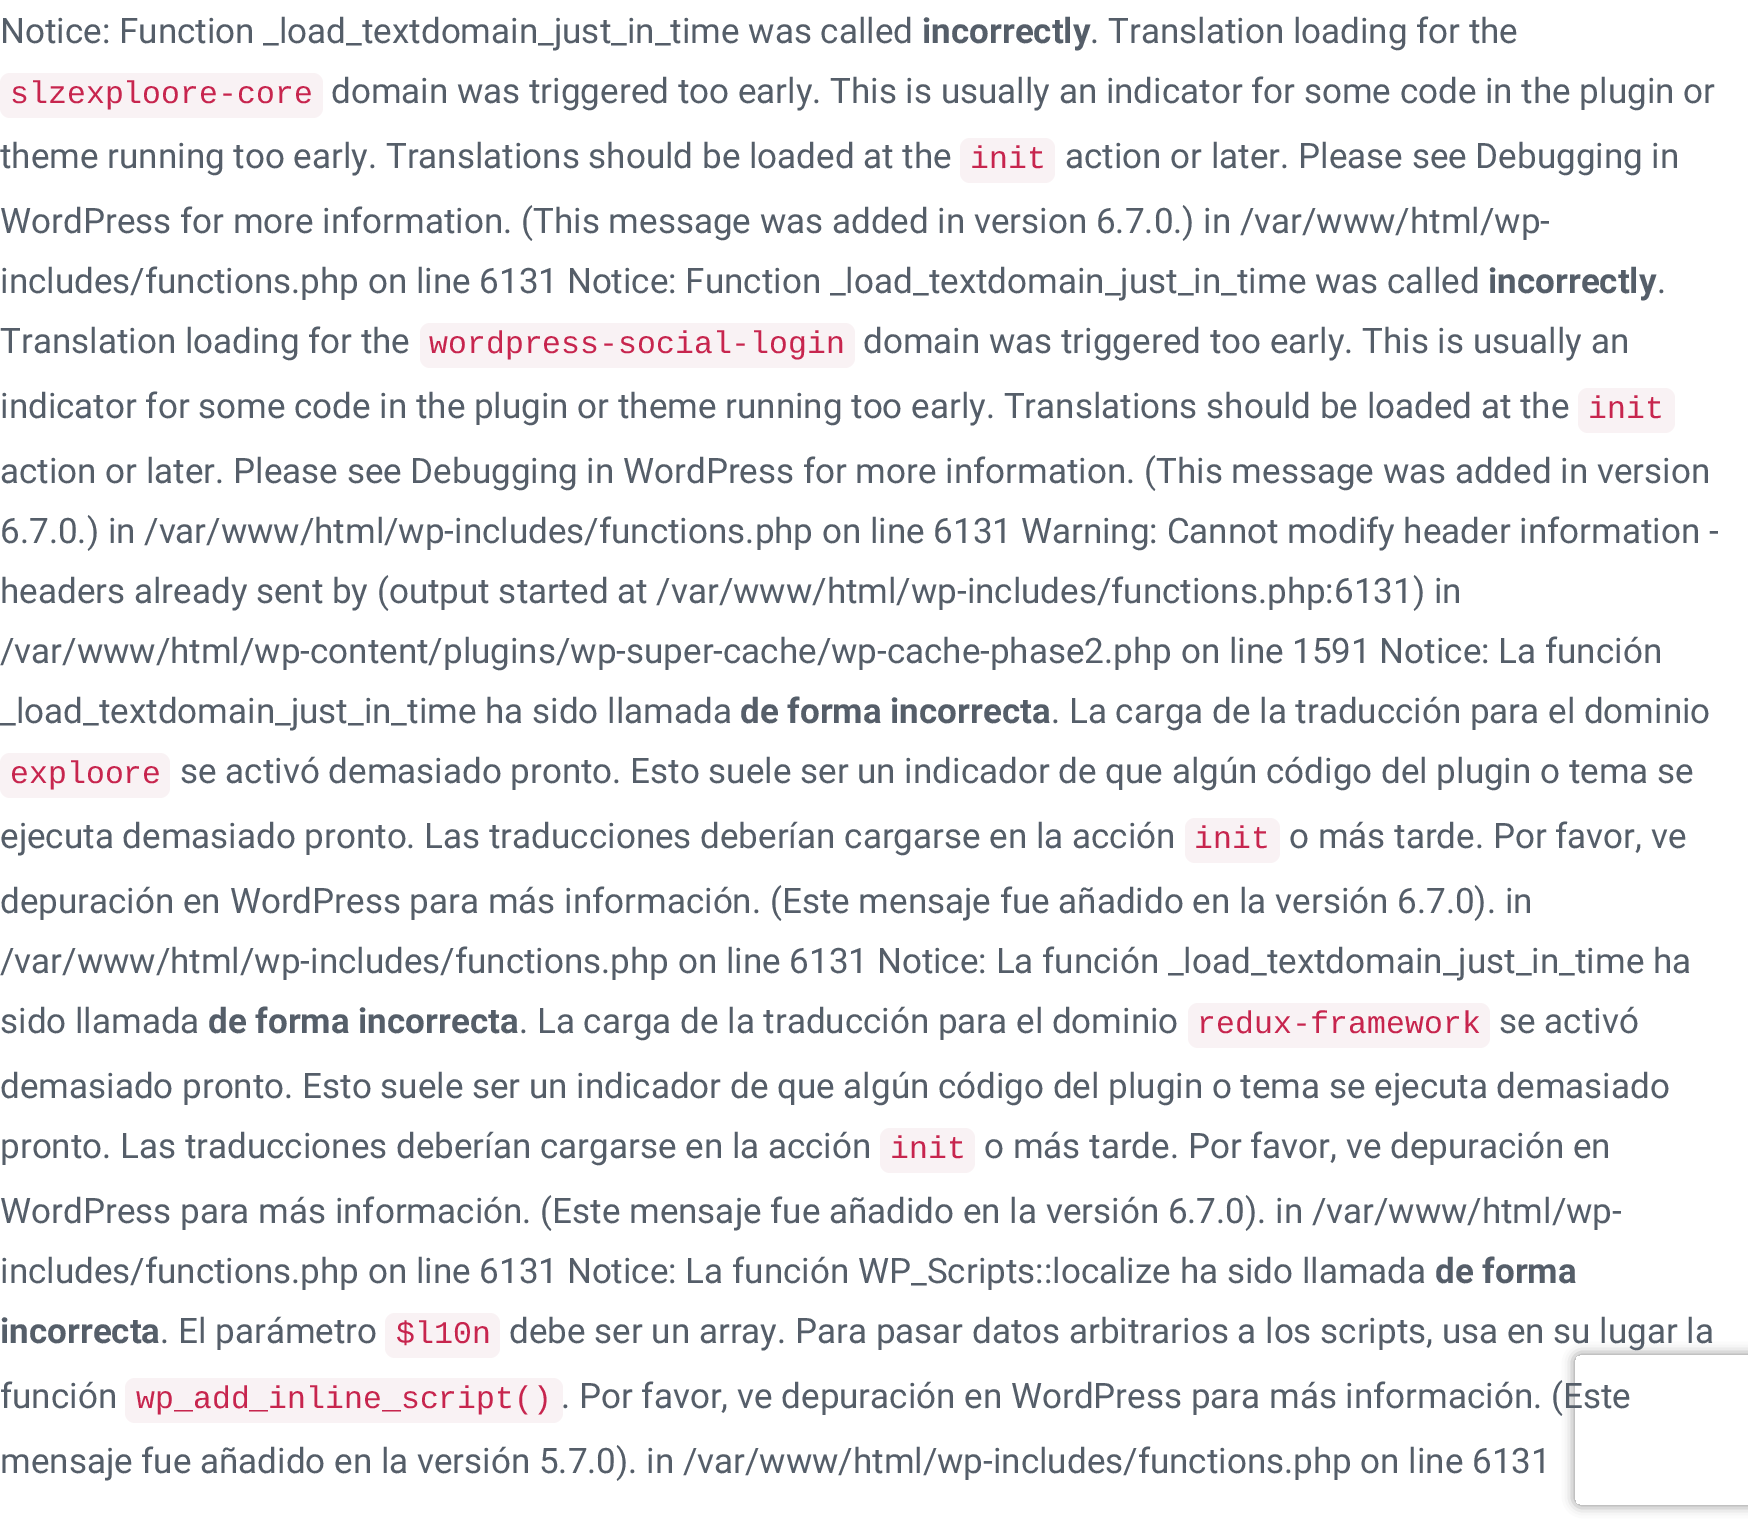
%!PS-Adobe-3.0
%%BoundingBox: 0 0 1748 1538
%%LanguageLevel: 3
%%Pages: 1
%%EndComments
%%BeginProlog
/setalpha { dup .setfillconstantalpha .setstrokeconstantalpha } def
/rrect { 5 dict begin { /r /h /w /y /x } { exch def } forall
  x r add y moveto x w add y 2 copy h add r arct x w add y h add x 1 index r arct
  x y h add x y r arct x y 2 copy exch w add exch r arct closepath end } def
/softshadow { 12 dict begin { /a /b /q /h /w /y /x } { exch def } forall gsave /was 0 def
  9 -2 -9 { dup b mul 4 div /e exch def 1 sub .425 mul 2.718 exch exp 1 add a .99 .min exch div /now exch def
    1 1 now sub 1 was sub div sub setalpha /was now def
    w h .min e 2 mul add 0 gt { x e sub y e sub w e 2 mul add h e 2 mul add
      q e add b .6 mul add w h .min 2 div e add .min 0 .max rrect fill } if } for grestore end } def
%%EndProlog
%%BeginSetup
<< /PageSize [1748 1538] /PageUsesTransparency true >> setpagedevice
%%EndSetup
%%Page: 1 1
0 .pushpdf14devicefilter
0 1538 translate 1 -1 scale
4 setmiterlimit
1 setgray
0 0 1748 1538 rectfill
0.976 0.949 0.957 setrgbcolor
0 73 323 45 10 rrect fill
960 138 95 45 10 rrect fill
420 323 435 45 10 rrect fill
1578 388 97 45 10 rrect fill
0 753 170 45 10 rrect fill
1185 818 95 45 10 rrect fill
1188 1003 302 45 10 rrect fill
880 1128 95 45 10 rrect fill
385 1313 115 45 10 rrect fill
125 1378 438 45 10 rrect fill
gsave
newpath 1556 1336 moveto 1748 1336 lineto 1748 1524 lineto 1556 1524 lineto closepath 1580 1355 moveto 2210 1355 lineto 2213 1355 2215 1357 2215 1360 curveto 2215 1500 lineto 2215 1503 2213 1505 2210 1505 curveto 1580 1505 lineto 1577 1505 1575 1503 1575 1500 curveto 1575 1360 lineto 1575 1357 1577 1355 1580 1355 curveto closepath eoclip newpath
0.502 setgray
1575 1355 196 150 5 6 1 softshadow
grestore
/Roboto-Regular [35 0 0 -35 0 0] selectfont
0.333 0.369 0.412 setrgbcolor
0 43 moveto (Notice: Function _load_textdomain_just_in_time was called) show
/Roboto-Bold [35 0 0 -35 0 0] selectfont
922 43 moveto (incorrectly) show
/Roboto-Regular [35 0 0 -35 0 0] selectfont
1090 43 moveto (. Translation loading for the) show
/LiberationMono-Regular [31.5 0 0 -31.5 0 0] selectfont
0.78 0.145 0.306 setrgbcolor
10 103 moveto (slzexploore-core) show
/Roboto-Regular [35 0 0 -35 0 0] selectfont
0.333 0.369 0.412 setrgbcolor
331 103 moveto (domain was triggered too early. This is usually an indicator for some code in the plugin or) show
0 168 moveto (theme running too early. Translations should be loaded at the) show
/LiberationMono-Regular [31.5 0 0 -31.5 0 0] selectfont
0.78 0.145 0.306 setrgbcolor
970 168 moveto (init) show
/Roboto-Regular [35 0 0 -35 0 0] selectfont
0.333 0.369 0.412 setrgbcolor
1065 168 moveto (action or later. Please see Debugging in) show
0 233 moveto (WordPress for more information. \(This message was added in version 6.7.0.\) in /var/www/html/wp-) show
0 293 moveto (includes/functions.php on line 6131 Notice: Function _load_textdomain_just_in_time was called) show
/Roboto-Bold [35 0 0 -35 0 0] selectfont
1488 293 moveto (incorrectly) show
/Roboto-Regular [35 0 0 -35 0 0] selectfont
1657 293 moveto (.) show
0 353 moveto (Translation loading for the) show
/LiberationMono-Regular [31.5 0 0 -31.5 0 0] selectfont
0.78 0.145 0.306 setrgbcolor
429 353 moveto (wordpress-social-login) show
/Roboto-Regular [35 0 0 -35 0 0] selectfont
0.333 0.369 0.412 setrgbcolor
863 353 moveto (domain was triggered too early. This is usually an) show
0 418 moveto (indicator for some code in the plugin or theme running too early. Translations should be loaded at the) show
/LiberationMono-Regular [31.5 0 0 -31.5 0 0] selectfont
0.78 0.145 0.306 setrgbcolor
1588 418 moveto (init) show
/Roboto-Regular [35 0 0 -35 0 0] selectfont
0.333 0.369 0.412 setrgbcolor
0 483 moveto (action or later. Please see Debugging in WordPress for more information. \(This message was added in version) show
0 543 moveto (6.7.0.\) in /var/www/html/wp-includes/functions.php on line 6131 Warning: Cannot modify header information -) show
0 603 moveto (headers already sent by \(output started at /var/www/html/wp-includes/functions.php:6131\) in) show
0 663 moveto (/var/www/html/wp-content/plugins/wp-super-cache/wp-cache-phase2.php on line 1591 Notice: La función) show
0 723 moveto (_load_textdomain_just_in_time ha sido llamada) show
/Roboto-Bold [35 0 0 -35 0 0] selectfont
740 723 moveto (de forma incorrecta) show
/Roboto-Regular [35 0 0 -35 0 0] selectfont
1051 723 moveto (. La carga de la traducción para el dominio) show
/LiberationMono-Regular [31.5 0 0 -31.5 0 0] selectfont
0.78 0.145 0.306 setrgbcolor
10 783 moveto (exploore) show
/Roboto-Regular [35 0 0 -35 0 0] selectfont
0.333 0.369 0.412 setrgbcolor
180 783 moveto (se activó demasiado pronto. Esto suele ser un indicador de que algún código del plugin o tema se) show
0 848 moveto (ejecuta demasiado pronto. Las traducciones deberían cargarse en la acción) show
/LiberationMono-Regular [31.5 0 0 -31.5 0 0] selectfont
0.78 0.145 0.306 setrgbcolor
1194 848 moveto (init) show
/Roboto-Regular [35 0 0 -35 0 0] selectfont
0.333 0.369 0.412 setrgbcolor
1289 848 moveto (o más tarde. Por favor, ve) show
0 913 moveto (depuración en WordPress para más información. \(Este mensaje fue añadido en la versión 6.7.0\). in) show
0 973 moveto (/var/www/html/wp-includes/functions.php on line 6131 Notice: La función _load_textdomain_just_in_time ha) show
0 1033 moveto (sido llamada) show
/Roboto-Bold [35 0 0 -35 0 0] selectfont
208 1033 moveto (de forma incorrecta) show
/Roboto-Regular [35 0 0 -35 0 0] selectfont
519 1033 moveto (. La carga de la traducción para el dominio) show
/LiberationMono-Regular [31.5 0 0 -31.5 0 0] selectfont
0.78 0.145 0.306 setrgbcolor
1197 1033 moveto (redux-framework) show
/Roboto-Regular [35 0 0 -35 0 0] selectfont
0.333 0.369 0.412 setrgbcolor
1499 1033 moveto (se activó) show
0 1098 moveto (demasiado pronto. Esto suele ser un indicador de que algún código del plugin o tema se ejecuta demasiado) show
0 1158 moveto (pronto. Las traducciones deberían cargarse en la acción) show
/LiberationMono-Regular [31.5 0 0 -31.5 0 0] selectfont
0.78 0.145 0.306 setrgbcolor
890 1158 moveto (init) show
/Roboto-Regular [35 0 0 -35 0 0] selectfont
0.333 0.369 0.412 setrgbcolor
984 1158 moveto (o más tarde. Por favor, ve depuración en) show
0 1223 moveto (WordPress para más información. \(Este mensaje fue añadido en la versión 6.7.0\). in /var/www/html/wp-) show
0 1283 moveto (includes/functions.php on line 6131 Notice: La función WP_Scripts::localize ha sido llamada) show
/Roboto-Bold [35 0 0 -35 0 0] selectfont
1435 1283 moveto (de forma) show
0 1343 moveto (incorrecta) show
/Roboto-Regular [35 0 0 -35 0 0] selectfont
160 1343 moveto (. El parámetro) show
/LiberationMono-Regular [31.5 0 0 -31.5 0 0] selectfont
0.78 0.145 0.306 setrgbcolor
396 1343 moveto ($l10n) show
/Roboto-Regular [35 0 0 -35 0 0] selectfont
0.333 0.369 0.412 setrgbcolor
509 1343 moveto (debe ser un array. Para pasar datos arbitrarios a los scripts, usa en su lugar la) show
0 1408 moveto (función) show
/LiberationMono-Regular [31.5 0 0 -31.5 0 0] selectfont
0.78 0.145 0.306 setrgbcolor
136 1408 moveto (wp_add_inline_script\(\)) show
/Roboto-Regular [35 0 0 -35 0 0] selectfont
0.333 0.369 0.412 setrgbcolor
561 1408 moveto (. Por favor, ve depuración en WordPress para más información. \(Este) show
0 1473 moveto (mensaje fue añadido en la versión 5.7.0\). in /var/www/html/wp-includes/functions.php on line 6131) show
.poppdf14devicefilter showpage
%%EOF
